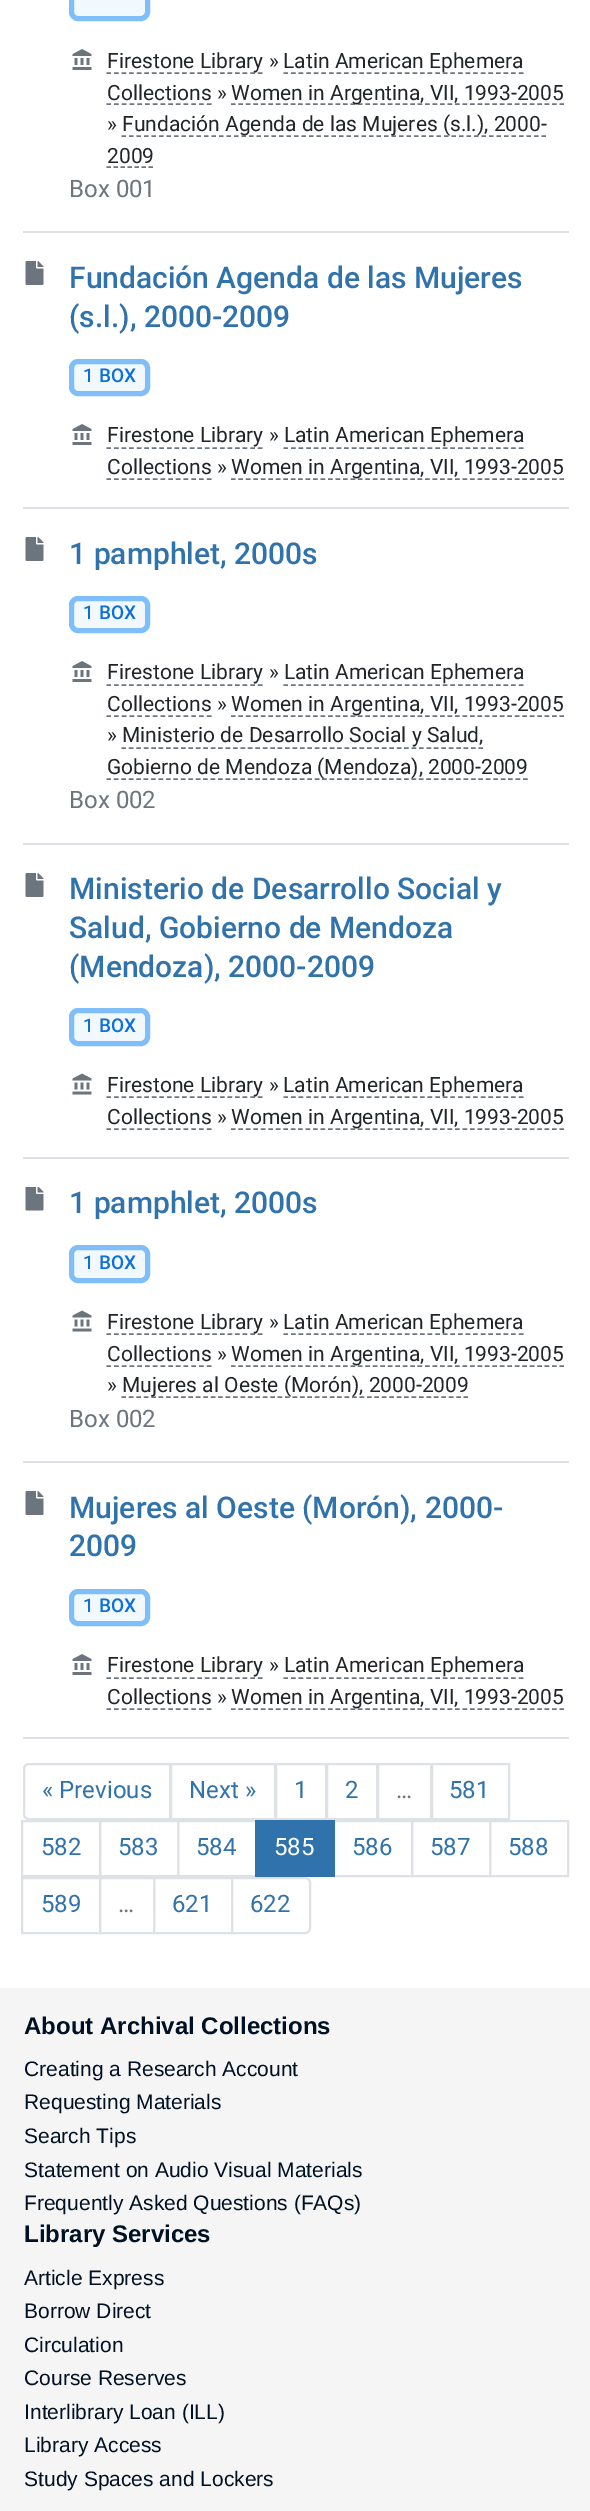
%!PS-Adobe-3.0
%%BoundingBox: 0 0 590 2511
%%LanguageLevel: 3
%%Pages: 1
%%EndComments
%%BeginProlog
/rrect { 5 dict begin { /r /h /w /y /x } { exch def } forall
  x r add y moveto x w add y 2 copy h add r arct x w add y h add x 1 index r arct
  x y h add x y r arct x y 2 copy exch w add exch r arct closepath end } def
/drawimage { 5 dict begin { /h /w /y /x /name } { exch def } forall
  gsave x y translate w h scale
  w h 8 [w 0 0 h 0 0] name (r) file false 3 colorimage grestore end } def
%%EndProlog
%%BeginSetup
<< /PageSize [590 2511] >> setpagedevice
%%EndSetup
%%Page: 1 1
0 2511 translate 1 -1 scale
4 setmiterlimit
1 setgray
0 0 590 2511 rectfill
0.871 0.886 0.902 setrgbcolor
23 231 546 2 rectfill
0.949 0.976 0.996 setrgbcolor
71.5 -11.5 76 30 6.5 rrect gsave fill grestore
0.498 0.745 0.973 setrgbcolor
5 setlinewidth
stroke
(images/1.raw) 72 49 20 21 drawimage
0.424 0.459 0.49 setrgbcolor
1.5 setlinewidth
[4.5 3.07] 0 setdash
newpath 106.5 73 moveto 262.5 73 lineto stroke
[4.5 3.09] 0 setdash
newpath 283.5 73 moveto 523.5 73 lineto stroke
[4.5 3.22] 0 setdash
newpath 106.5 104 moveto 211.5 104 lineto stroke
[4.5 2.97] 0 setdash
newpath 231 104 moveto 564 104 lineto stroke
[4.5 3] 0 setdash
newpath 121.5 136 moveto 546 136 lineto stroke
[4.5 2.5] 0 setdash
newpath 106.5 167 moveto 153 167 lineto stroke
0.871 0.886 0.902 setrgbcolor
23 507 546 2 rectfill
(images/2.raw) 25 261 19 24 drawimage
0.949 0.976 0.996 setrgbcolor
71.5 361.5 76 32 6.5 rrect gsave fill grestore
0.498 0.745 0.973 setrgbcolor
5 setlinewidth
[] 0 setdash
stroke
(images/1.raw) 72 424 20 21 drawimage
0.424 0.459 0.49 setrgbcolor
1.5 setlinewidth
[4.5 3.07] 0 setdash
newpath 106.5 448 moveto 262.5 448 lineto stroke
[4.5 3.09] 0 setdash
newpath 283.5 448 moveto 523.5 448 lineto stroke
[4.5 3.22] 0 setdash
newpath 106.5 479 moveto 211.5 479 lineto stroke
[4.5 2.97] 0 setdash
newpath 231 479 moveto 564 479 lineto stroke
0.871 0.886 0.902 setrgbcolor
23 843 546 2 rectfill
(images/2.raw) 25 537 19 24 drawimage
0.949 0.976 0.996 setrgbcolor
71.5 598.5 76 32 6.5 rrect gsave fill grestore
0.498 0.745 0.973 setrgbcolor
5 setlinewidth
[] 0 setdash
stroke
(images/1.raw) 72 661 20 21 drawimage
0.424 0.459 0.49 setrgbcolor
1.5 setlinewidth
[4.5 3.07] 0 setdash
newpath 106.5 685 moveto 262.5 685 lineto stroke
[4.5 3.09] 0 setdash
newpath 283.5 685 moveto 523.5 685 lineto stroke
[4.5 3.22] 0 setdash
newpath 106.5 716 moveto 211.5 716 lineto stroke
[4.5 2.97] 0 setdash
newpath 231 716 moveto 564 716 lineto stroke
[4.5 2.94] 0 setdash
newpath 121.5 748 moveto 483 748 lineto stroke
newpath 106.5 779 moveto 528 779 lineto stroke
0.871 0.886 0.902 setrgbcolor
23 1157 546 2 rectfill
(images/2.raw) 25 873 19 24 drawimage
0.949 0.976 0.996 setrgbcolor
71.5 1010.5 76 33 6.5 rrect gsave fill grestore
0.498 0.745 0.973 setrgbcolor
5 setlinewidth
[] 0 setdash
stroke
(images/3.raw) 72 1073 20 22 drawimage
0.424 0.459 0.49 setrgbcolor
1.5 setlinewidth
[4.5 3.07] 0 setdash
newpath 106.5 1097 moveto 262.5 1097 lineto stroke
[4.5 3.09] 0 setdash
newpath 283.5 1097 moveto 523.5 1097 lineto stroke
[4.5 3.22] 0 setdash
newpath 106.5 1129 moveto 211.5 1129 lineto stroke
[4.5 2.97] 0 setdash
newpath 231 1129 moveto 564 1129 lineto stroke
0.871 0.886 0.902 setrgbcolor
23 1461 546 2 rectfill
(images/4.raw) 25 1187 19 24 drawimage
0.949 0.976 0.996 setrgbcolor
71.5 1247.5 76 33 6.5 rrect gsave fill grestore
0.498 0.745 0.973 setrgbcolor
5 setlinewidth
[] 0 setdash
stroke
(images/3.raw) 72 1310 20 22 drawimage
0.424 0.459 0.49 setrgbcolor
1.5 setlinewidth
[4.5 3.07] 0 setdash
newpath 106.5 1334 moveto 262.5 1334 lineto stroke
[4.5 3.09] 0 setdash
newpath 283.5 1334 moveto 523.5 1334 lineto stroke
[4.5 3.22] 0 setdash
newpath 106.5 1366 moveto 211.5 1366 lineto stroke
[4.5 2.97] 0 setdash
newpath 231 1366 moveto 564 1366 lineto stroke
[4.5 2.94] 0 setdash
newpath 121.5 1397 moveto 468 1397 lineto stroke
0.871 0.886 0.902 setrgbcolor
23 1737 546 2 rectfill
(images/2.raw) 25 1491 19 24 drawimage
0.949 0.976 0.996 setrgbcolor
71.5 1591.5 76 32 6.5 rrect gsave fill grestore
0.498 0.745 0.973 setrgbcolor
5 setlinewidth
[] 0 setdash
stroke
(images/1.raw) 72 1654 20 21 drawimage
0.424 0.459 0.49 setrgbcolor
1.5 setlinewidth
[4.5 3.07] 0 setdash
newpath 106.5 1678 moveto 262.5 1678 lineto stroke
[4.5 3.09] 0 setdash
newpath 283.5 1678 moveto 523.5 1678 lineto stroke
[4.5 3.22] 0 setdash
newpath 106.5 1709 moveto 211.5 1709 lineto stroke
[4.5 2.97] 0 setdash
newpath 231 1709 moveto 564 1709 lineto stroke
0.871 0.886 0.902 setrgbcolor
2 setlinewidth
[] 0 setdash
newpath 29 1764 moveto 170 1764 lineto 170 1819 lineto 29 1819 lineto 26 1819 24 1817 24 1814 curveto 24 1769 lineto 24 1766 26 1764 29 1764 curveto closepath stroke
171 1764 104 55 rectstroke
276 1764 50 55 rectstroke
327 1764 50 55 rectstroke
378 1764 53 55 rectstroke
432 1764 77 55 rectstroke
22 1821 78 55 rectstroke
100 1821 78 55 rectstroke
178 1821 78 55 rectstroke
334 1821 78 55 rectstroke
0.188 0.447 0.671 setrgbcolor
255 1820 80 57 rectfill
0.871 0.886 0.902 setrgbcolor
412 1821 78 55 rectstroke
490 1821 78 55 rectstroke
22 1878 78 55 rectstroke
100 1878 54 55 rectstroke
154 1878 78 55 rectstroke
1 setgray
newpath 232 1878 moveto 305 1878 lineto 308 1878 310 1880 310 1883 curveto 310 1928 lineto 310 1931 308 1933 305 1933 curveto 232 1933 lineto closepath gsave fill grestore
0.871 0.886 0.902 setrgbcolor
stroke
0.961 setgray
0 1988 590 523 rectfill
/Roboto-Regular [21 0 0 -21 0 0] selectfont
0.129 0.145 0.161 setrgbcolor
107 68 moveto (Firestone Library ») show
283 68 moveto (Latin American Ephemera) show
107 100 moveto (Collections ») show
231 100 moveto (Women in Argentina, VII, 1993-2005) show
107 131 moveto (») show
122 131 moveto (Fundación Agenda de las Mujeres \(s.l.\), 2000-) show
107 163 moveto (2009) show
/Roboto-Regular [24 0 0 -24 0 0] selectfont
0.424 0.459 0.49 setrgbcolor
69 197 moveto (Box 001) show
/Roboto-Medium [30 0 0 -30 0 0] selectfont
0.188 0.447 0.671 setrgbcolor
69 288 moveto (Fundación Agenda de las Mujeres) show
69 327 moveto (\(s.l.\), 2000-2009) show
/Roboto-Medium [19 0 0 -19 0 0] selectfont
0.051 0.435 0.851 setrgbcolor
83 382 moveto (1 BOX) show
/Roboto-Regular [21 0 0 -21 0 0] selectfont
0.129 0.145 0.161 setrgbcolor
107 442 moveto (Firestone Library » Latin American Ephemera) show
107 474 moveto (Collections ») show
231 474 moveto (Women in Argentina, VII, 1993-2005) show
/Roboto-Medium [30 0 0 -30 0 0] selectfont
0.188 0.447 0.671 setrgbcolor
69 564 moveto (1 pamphlet, 2000s) show
/Roboto-Medium [19 0 0 -19 0 0] selectfont
0.051 0.435 0.851 setrgbcolor
83 619 moveto (1 BOX) show
/Roboto-Regular [21 0 0 -21 0 0] selectfont
0.129 0.145 0.161 setrgbcolor
107 679 moveto (Firestone Library » Latin American Ephemera) show
107 711 moveto (Collections ») show
231 711 moveto (Women in Argentina, VII, 1993-2005) show
107 742 moveto (» Ministerio de Desarrollo Social y Salud,) show
107 774 moveto (Gobierno de Mendoza \(Mendoza\), 2000-2009) show
/Roboto-Regular [24 0 0 -24 0 0] selectfont
0.424 0.459 0.49 setrgbcolor
69 808 moveto (Box 002) show
/Roboto-Medium [30 0 0 -30 0 0] selectfont
0.188 0.447 0.671 setrgbcolor
69 899 moveto (Ministerio de Desarrollo Social y) show
69 938 moveto (Salud, Gobierno de Mendoza) show
69 977 moveto (\(Mendoza\), 2000-2009) show
/Roboto-Medium [19 0 0 -19 0 0] selectfont
0.051 0.435 0.851 setrgbcolor
83 1032 moveto (1 BOX) show
/Roboto-Regular [21 0 0 -21 0 0] selectfont
0.129 0.145 0.161 setrgbcolor
107 1092 moveto (Firestone Library ») show
283 1092 moveto (Latin American Ephemera) show
107 1124 moveto (Collections ») show
231 1124 moveto (Women in Argentina, VII, 1993-2005) show
/Roboto-Medium [30 0 0 -30 0 0] selectfont
0.188 0.447 0.671 setrgbcolor
69 1213 moveto (1 pamphlet, 2000s) show
/Roboto-Medium [19 0 0 -19 0 0] selectfont
0.051 0.435 0.851 setrgbcolor
83 1269 moveto (1 BOX) show
/Roboto-Regular [21 0 0 -21 0 0] selectfont
0.129 0.145 0.161 setrgbcolor
107 1329 moveto (Firestone Library ») show
283 1329 moveto (Latin American Ephemera) show
107 1361 moveto (Collections ») show
231 1361 moveto (Women in Argentina, VII, 1993-2005) show
107 1392 moveto (») show
122 1392 moveto (Mujeres al Oeste \(Morón\), 2000-2009) show
/Roboto-Regular [24 0 0 -24 0 0] selectfont
0.424 0.459 0.49 setrgbcolor
69 1427 moveto (Box 002) show
/Roboto-Medium [30 0 0 -30 0 0] selectfont
0.188 0.447 0.671 setrgbcolor
69 1518 moveto (Mujeres al Oeste \(Morón\), 2000-) show
69 1556 moveto (2009) show
/Roboto-Medium [19 0 0 -19 0 0] selectfont
0.051 0.435 0.851 setrgbcolor
83 1612 moveto (1 BOX) show
/Roboto-Regular [21 0 0 -21 0 0] selectfont
0.129 0.145 0.161 setrgbcolor
107 1672 moveto (Firestone Library » Latin American Ephemera) show
107 1704 moveto (Collections ») show
231 1704 moveto (Women in Argentina, VII, 1993-2005) show
/Roboto-Regular [24 0 0 -24 0 0] selectfont
0.188 0.447 0.671 setrgbcolor
42 1798 moveto (« Previous) show
189 1798 moveto (Next ») show
294 1798 moveto (1) show
345 1798 moveto (2) show
0.424 0.459 0.49 setrgbcolor
396 1798 moveto (…) show
0.188 0.447 0.671 setrgbcolor
449 1798 moveto (581) show
41 1855 moveto (582) show
118 1855 moveto (583) show
196 1855 moveto (584) show
1 setgray
274 1855 moveto (585) show
0.188 0.447 0.671 setrgbcolor
352 1855 moveto (586) show
430 1855 moveto (587) show
508 1855 moveto (588) show
41 1912 moveto (589) show
0.424 0.459 0.49 setrgbcolor
118 1912 moveto (…) show
0.188 0.447 0.671 setrgbcolor
172 1912 moveto (621) show
250 1912 moveto (622) show
/LiberationSans-Bold [24 0 0 -24 0 0] selectfont
0 0.067 0.137 setrgbcolor
24 2034 moveto (About Archival Collections) show
/LiberationSans-Regular [21 0 0 -21 0 0] selectfont
24 2076 moveto (Creating a Research Account) show
24 2109 moveto (Requesting Materials) show
24 2143 moveto (Search Tips) show
24 2177 moveto (Statement on Audio Visual Materials) show
24 2210 moveto (Frequently Asked Questions \(FAQs\)) show
/LiberationSans-Bold [24 0 0 -24 0 0] selectfont
24 2242 moveto (Library Services) show
/LiberationSans-Regular [21 0 0 -21 0 0] selectfont
24 2285 moveto (Article Express) show
24 2318 moveto (Borrow Direct) show
24 2352 moveto (Circulation) show
24 2385 moveto (Course Reserves) show
24 2419 moveto (Interlibrary Loan \(ILL\)) show
24 2452 moveto (Library Access) show
24 2486 moveto (Study Spaces and Lockers) show
showpage
%%EOF
